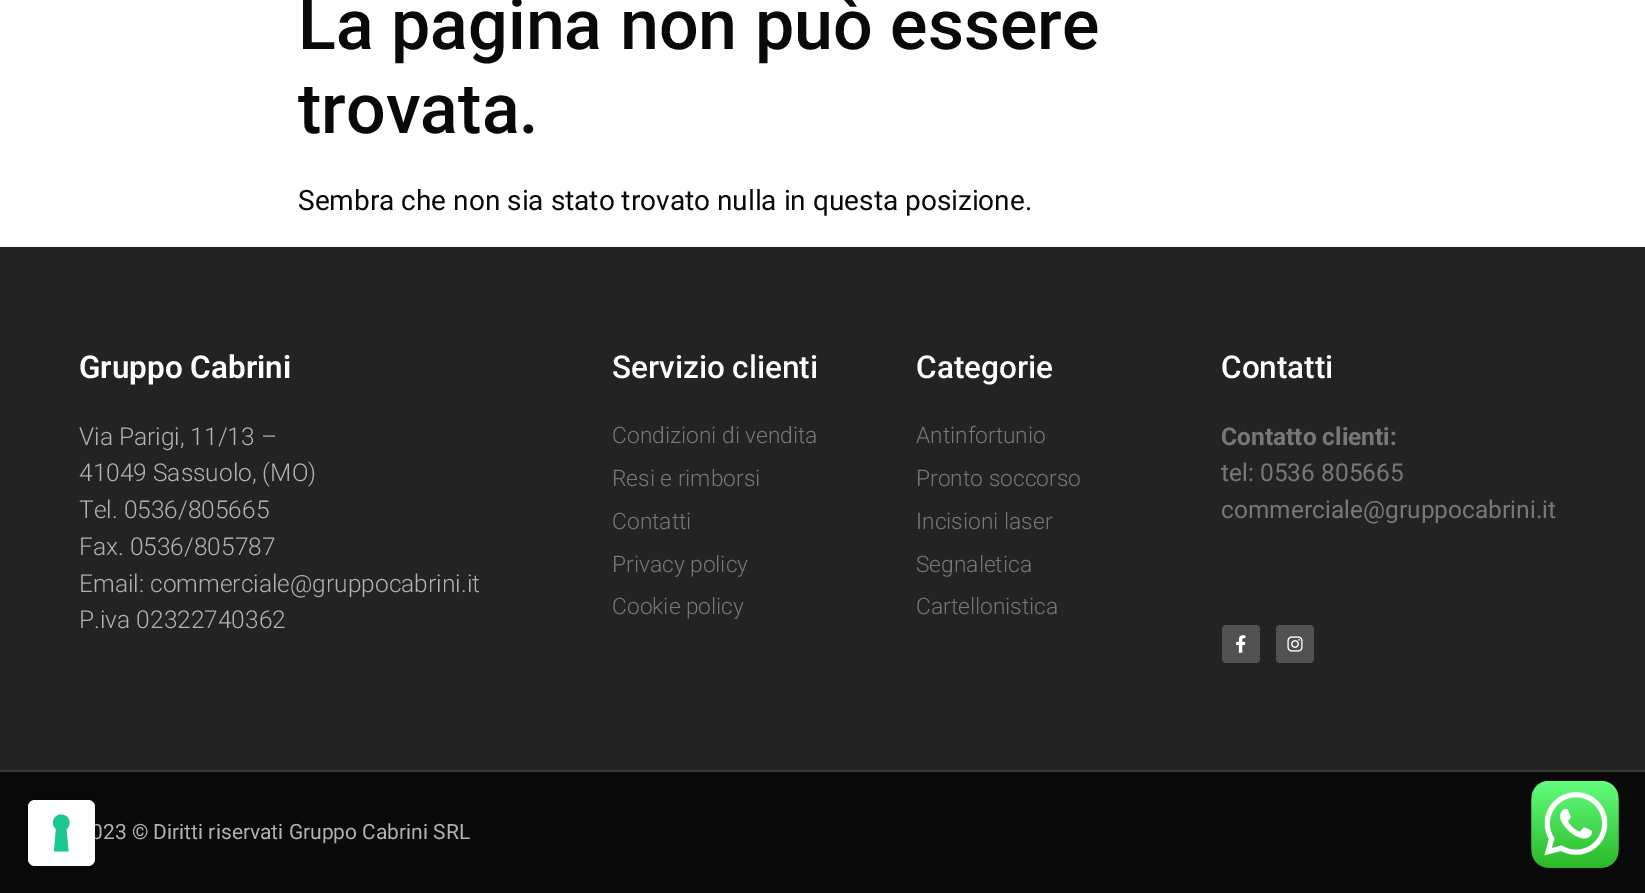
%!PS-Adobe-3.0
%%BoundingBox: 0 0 1645 893
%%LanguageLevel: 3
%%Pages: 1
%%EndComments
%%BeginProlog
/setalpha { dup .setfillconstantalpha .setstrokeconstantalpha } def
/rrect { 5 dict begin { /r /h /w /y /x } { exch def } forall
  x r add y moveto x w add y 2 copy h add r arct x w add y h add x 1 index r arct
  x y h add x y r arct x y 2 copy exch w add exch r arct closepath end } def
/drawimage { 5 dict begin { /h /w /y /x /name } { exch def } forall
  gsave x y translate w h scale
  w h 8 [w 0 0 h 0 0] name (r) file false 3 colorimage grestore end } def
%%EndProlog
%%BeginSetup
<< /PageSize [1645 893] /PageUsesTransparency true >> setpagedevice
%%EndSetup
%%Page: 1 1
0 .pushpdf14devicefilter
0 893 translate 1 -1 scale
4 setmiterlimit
1 setgray
0 0 1645 893 rectfill
0.137 setgray
0 247 1645 523 rectfill
0.318 setgray
1222 625 38 38 4 rrect fill
(images/1.raw) 1236 635 10 18 drawimage
1276 625 38 38 4 rrect fill
(images/2.raw) 1287 636 16 16 drawimage
0.035 setgray
0 772 1645 121 rectfill
0.22 setgray
0 770 1645 2 rectfill
(images/3.raw) 1531 781 88 87 drawimage
/Roboto-Medium [70 0 0 -70 0 0] selectfont
0.035 setgray
298 49 moveto (La pagina non può essere) show
298 133 moveto (trovata.) show
/Roboto-Regular [28 0 0 -28 0 0] selectfont
298 210 moveto (Sembra che non sia stato trovato nulla in questa posizione.) show
/Roboto-SemiBold [31.5 0 0 -31.5 0 0] selectfont
1 setgray
79 378 moveto (Gruppo Cabrini) show
/Roboto-Light [24.5 0 0 -24.5 0 0] selectfont
0.698 setgray
79 445 moveto (Via Parigi, 11/13 –) show
79 481 moveto (41049 Sassuolo, \(MO\)) show
79 518 moveto (Tel. 0536/805665) show
79 555 moveto (Fax. 0536/805787) show
79 592 moveto (Email: commerciale@gruppocabrini.it) show
79 628 moveto (P.iva 02322740362) show
/Roboto-Medium [31.5 0 0 -31.5 0 0] selectfont
1 setgray
612 378 moveto (Servizio clienti) show
/Roboto-Light [22.75 0 0 -22.75 0 0] selectfont
0.467 setgray
612 443 moveto (Condizioni di vendita) show
612 486 moveto (Resi e rimborsi) show
612 529 moveto (Contatti) show
612 572 moveto (Privacy policy) show
612 614 moveto (Cookie policy) show
/Roboto-Medium [31.5 0 0 -31.5 0 0] selectfont
1 setgray
916 378 moveto (Categorie) show
/Roboto-Light [22.75 0 0 -22.75 0 0] selectfont
0.467 setgray
916 443 moveto (Antinfortunio) show
916 486 moveto (Pronto soccorso) show
916 529 moveto (Incisioni laser) show
916 572 moveto (Segnaletica) show
916 614 moveto (Cartellonistica) show
/Roboto-Medium [31.5 0 0 -31.5 0 0] selectfont
1 setgray
1221 378 moveto (Contatti) show
/Roboto-Bold [24.5 0 0 -24.5 0 0] selectfont
0.467 setgray
1221 445 moveto (Contatto clienti:) show
/Roboto-Regular [24.5 0 0 -24.5 0 0] selectfont
1221 481 moveto (tel: 0536 805665) show
1221 518 moveto (commerciale@gruppocabrini.it) show
/Roboto-Regular [21 0 0 -21 0 0] selectfont
0.698 setgray
91 839 moveto (023 © Diritti riservati Gruppo Cabrini SRL) show
0.15 setalpha
0 setgray
2 setlinewidth
27 799 68 68 8 rrect stroke
1 setalpha
1 setgray
28 800 67 66 7 rrect fill
0.11 0.776 0.569 setrgbcolor
newpath 61 814.5 moveto 69 814.5 72.5 824 66.5 829 curveto 68.5 851.5 lineto 54 851.5 lineto 56 829 lineto 50 824 53.5 814.5 61 814.5 curveto closepath eofill
.poppdf14devicefilter showpage
%%EOF
